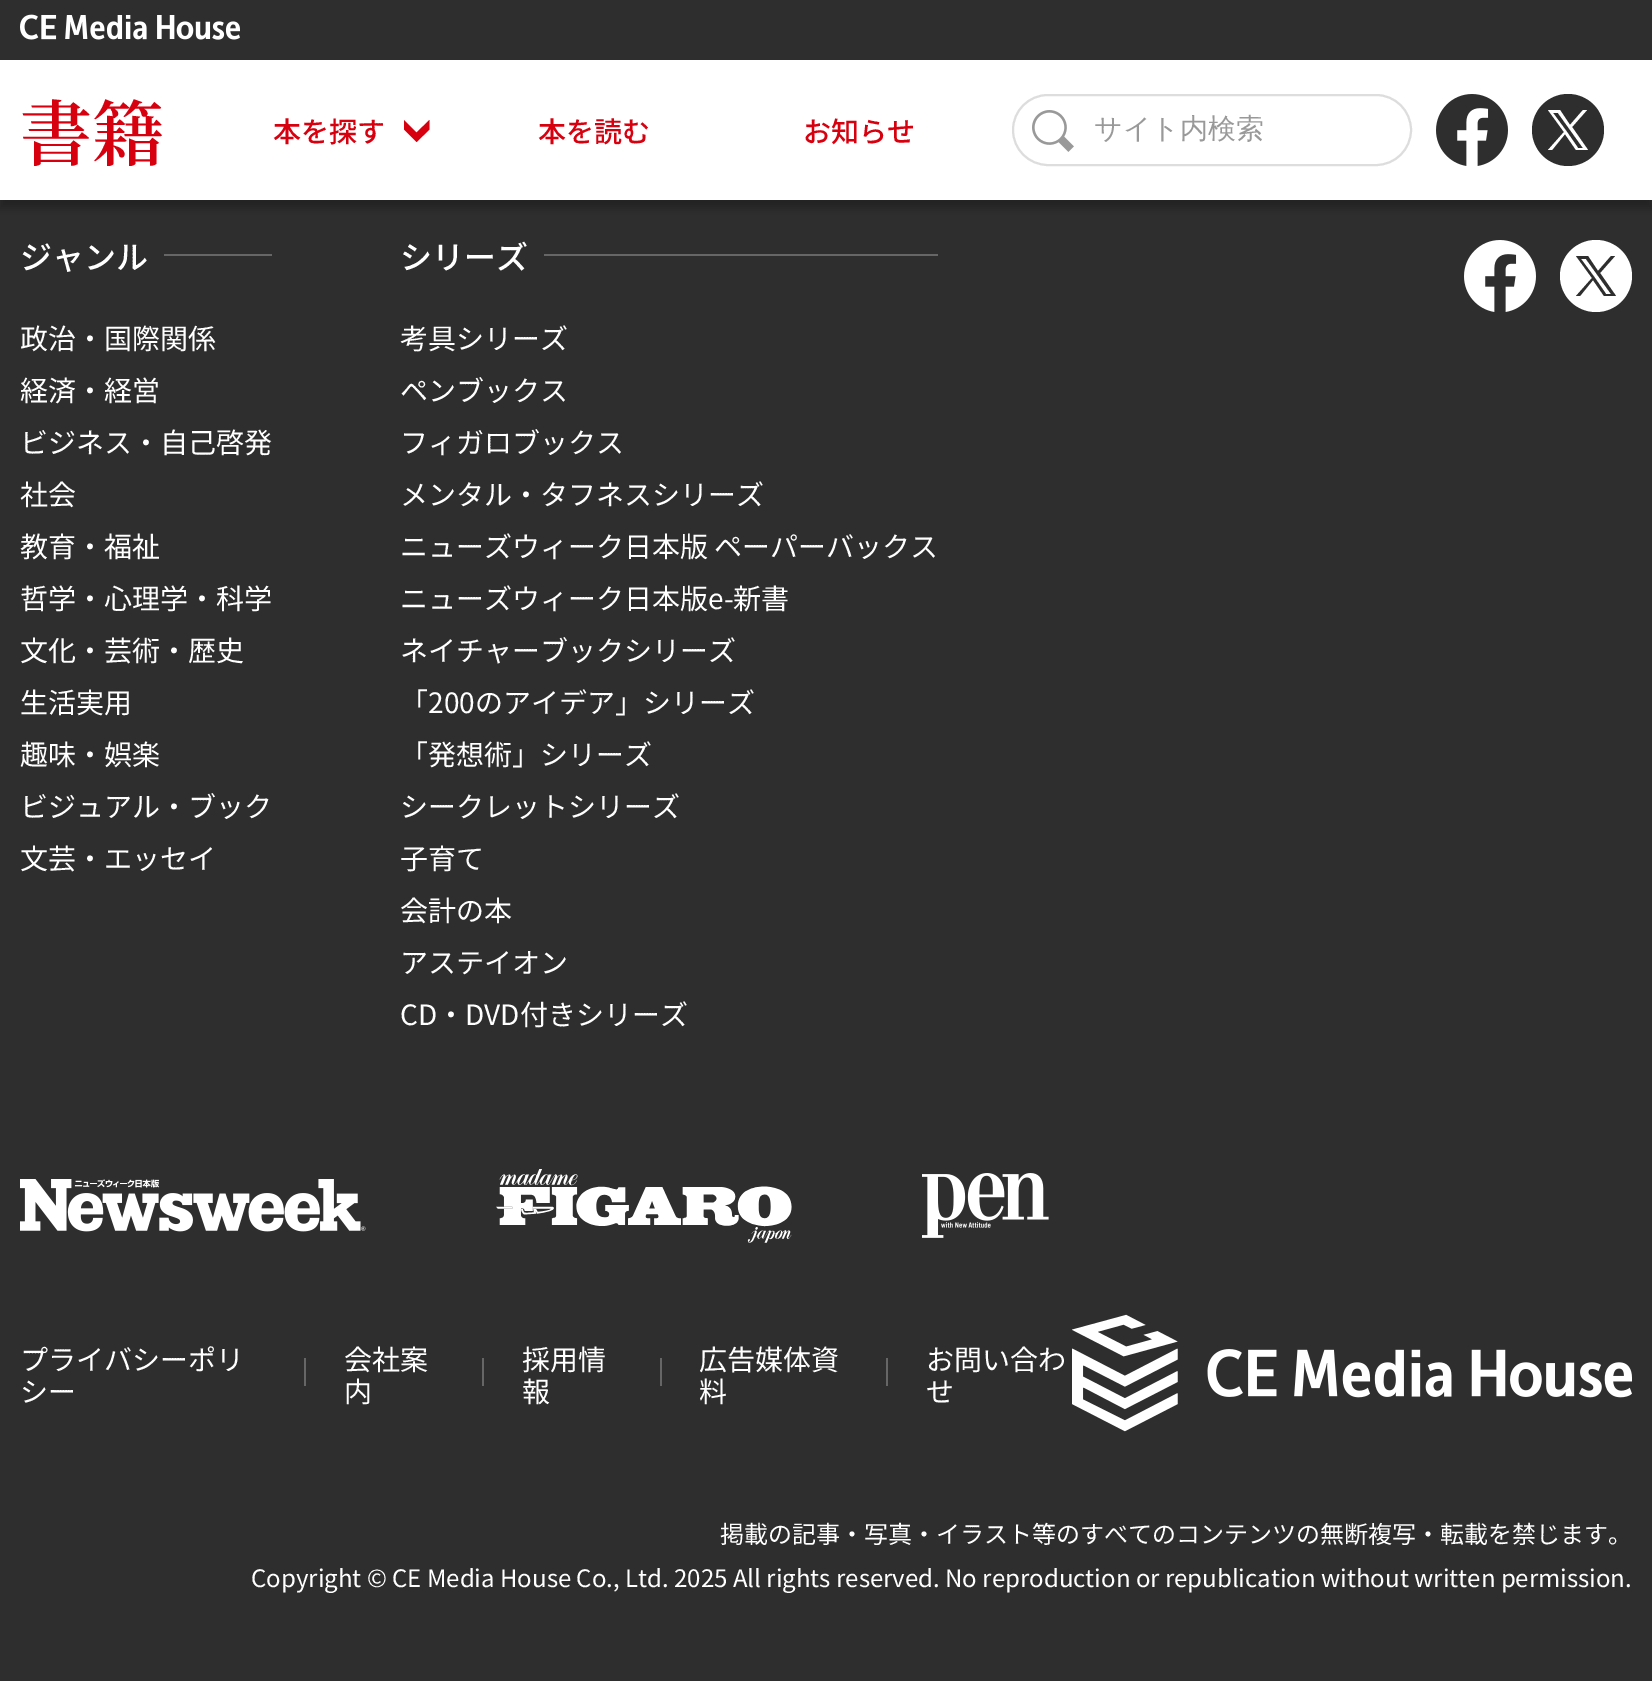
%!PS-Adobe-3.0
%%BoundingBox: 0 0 1652 1681
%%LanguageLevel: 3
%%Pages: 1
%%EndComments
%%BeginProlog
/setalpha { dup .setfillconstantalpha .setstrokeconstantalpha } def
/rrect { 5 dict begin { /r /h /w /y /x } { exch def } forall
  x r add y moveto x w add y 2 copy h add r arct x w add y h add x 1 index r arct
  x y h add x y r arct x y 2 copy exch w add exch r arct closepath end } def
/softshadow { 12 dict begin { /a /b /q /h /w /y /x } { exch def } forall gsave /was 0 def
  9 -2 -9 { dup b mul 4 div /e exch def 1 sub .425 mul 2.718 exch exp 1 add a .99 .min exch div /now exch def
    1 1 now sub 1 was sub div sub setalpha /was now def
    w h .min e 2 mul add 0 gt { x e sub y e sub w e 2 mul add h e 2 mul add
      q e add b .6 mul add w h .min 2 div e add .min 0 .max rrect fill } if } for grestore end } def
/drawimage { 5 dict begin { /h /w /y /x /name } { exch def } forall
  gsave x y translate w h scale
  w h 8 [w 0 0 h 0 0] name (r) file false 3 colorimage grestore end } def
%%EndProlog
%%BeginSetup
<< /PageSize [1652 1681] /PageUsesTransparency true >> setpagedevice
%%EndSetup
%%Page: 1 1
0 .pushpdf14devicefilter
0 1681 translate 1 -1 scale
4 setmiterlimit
0.18 setgray
0 0 1652 1681 rectfill
(images/1.raw) 20 14 220 26 drawimage
0 setgray
0 68 1652 140 0 4 0.25 softshadow
1 setgray
0 60 1652 140 rectfill
0.843 0 0.059 setrgbcolor
newpath 416.5 132.5 moveto 404 120 lineto 404 129.5 lineto 416.5 142 lineto 429.5 129.5 lineto 429.5 120 lineto closepath fill
0.867 setgray
2 setlinewidth
1013 95 398 70 35 rrect stroke
(images/2.raw) 1032 110 42 42 drawimage
(images/3.raw) 1436 94 72 72 drawimage
0.18 setgray
newpath 1568 130 36 0 360 arc closepath fill
1 setgray
newpath 1572 127 moveto 1587 110 lineto 1583 110 lineto 1570 125 lineto 1560 110 lineto 1548 110 lineto 1564 132 lineto 1548 150 lineto 1552 150 lineto 1565 134 lineto 1576 150 lineto 1588 150 lineto closepath 1567 132 moveto 1553 113 lineto 1558 113 lineto 1583 148 lineto 1578 148 lineto closepath fill
0.4 setgray
164 254 108 2 rectfill
544 254 394 2 rectfill
(images/4.raw) 1464 240 72 72 drawimage
1 setgray
newpath 1596 276 36 0 360 arc closepath fill
0.18 setgray
newpath 1600 273 moveto 1615 256 lineto 1611 256 lineto 1598 271 lineto 1588 256 lineto 1576 256 lineto 1592 278 lineto 1576 296 lineto 1580 296 lineto 1593 280 lineto 1604 296 lineto 1616 296 lineto closepath 1595 278 moveto 1581 259 lineto 1586 259 lineto 1611 294 lineto 1606 294 lineto closepath fill
(images/5.raw) 20 1179 346 53 drawimage
(images/6.raw) 496 1169 296 74 drawimage
(images/7.raw) 922 1173 127 65 drawimage
0.4 setgray
304 1358 2 28 rectfill
482 1358 2 28 rectfill
660 1358 2 28 rectfill
886 1358 2 28 rectfill
(images/8.raw) 1072 1314 560 118 drawimage
/NotoSerifJP-ExtraLight [72 0 0 -72 0 0] selectfont
0.843 0 0.059 setrgbcolor
20 160 moveto (書籍) show
/NotoSansJP-Medium [28 0 0 -28 0 0] selectfont
273 142 moveto (本を探す) show
538 142 moveto (本を読む) show
803 142 moveto (お知らせ) show
/WenQuanYiZenHei-Medium [28 0 0 -28 0 0] selectfont
0.6 setgray
1094 138 moveto (サイト内検索) show
/NotoSansJP-Medium [32 0 0 -32 0 0] selectfont
1 setgray
20 269 moveto (ジャンル) show
/NotoSansJP-Regular [28 0 0 -28 0 0] selectfont
20 349 moveto (政治・国際関係) show
20 401 moveto (経済・経営) show
20 453 moveto (ビジネス・自己啓発) show
20 505 moveto (社会) show
20 557 moveto (教育・福祉) show
20 609 moveto (哲学・心理学・科学) show
20 661 moveto (文化・芸術・歴史) show
20 713 moveto (生活実用) show
20 765 moveto (趣味・娯楽) show
20 817 moveto (ビジュアル・ブック) show
20 869 moveto (文芸・エッセイ) show
/NotoSansJP-Medium [32 0 0 -32 0 0] selectfont
400 269 moveto (シリーズ) show
/NotoSansJP-Regular [28 0 0 -28 0 0] selectfont
400 349 moveto (考具シリーズ) show
400 401 moveto (ペンブックス) show
400 453 moveto (フィガロブックス) show
400 505 moveto (メンタル・タフネスシリーズ) show
400 557 moveto (ニューズウィーク日本版 ペーパーバックス) show
400 609 moveto (ニューズウィーク日本版e-新書) show
400 661 moveto (ネイチャーブックシリーズ) show
400 713 moveto (「200のアイデア」シリーズ) show
400 765 moveto (「発想術」シリーズ) show
400 817 moveto (シークレットシリーズ) show
400 869 moveto (子育て) show
400 921 moveto (会計の本) show
400 973 moveto (アステイオン) show
400 1025 moveto (CD・DVD付きシリーズ) show
20 1370 moveto (プライバシーポリ) show
20 1402 moveto (シー) show
344 1370 moveto (会社案) show
344 1402 moveto (内) show
522 1370 moveto (採用情) show
522 1402 moveto (報) show
699 1370 moveto (広告媒体資) show
699 1402 moveto (料) show
926 1370 moveto (お問い合わ) show
926 1402 moveto (せ) show
/NotoSansJP-Regular [24 0 0 -24 0 0] selectfont
720 1543 moveto (掲載の記事・写真・イラスト等のすべてのコンテンツの無断複写・転載を禁じます。) show
251 1587 moveto (Copyright © CE Media House Co., Ltd. 2025 All rights reserved. No reproduction or republication without written permission.) show
.poppdf14devicefilter showpage
%%EOF
